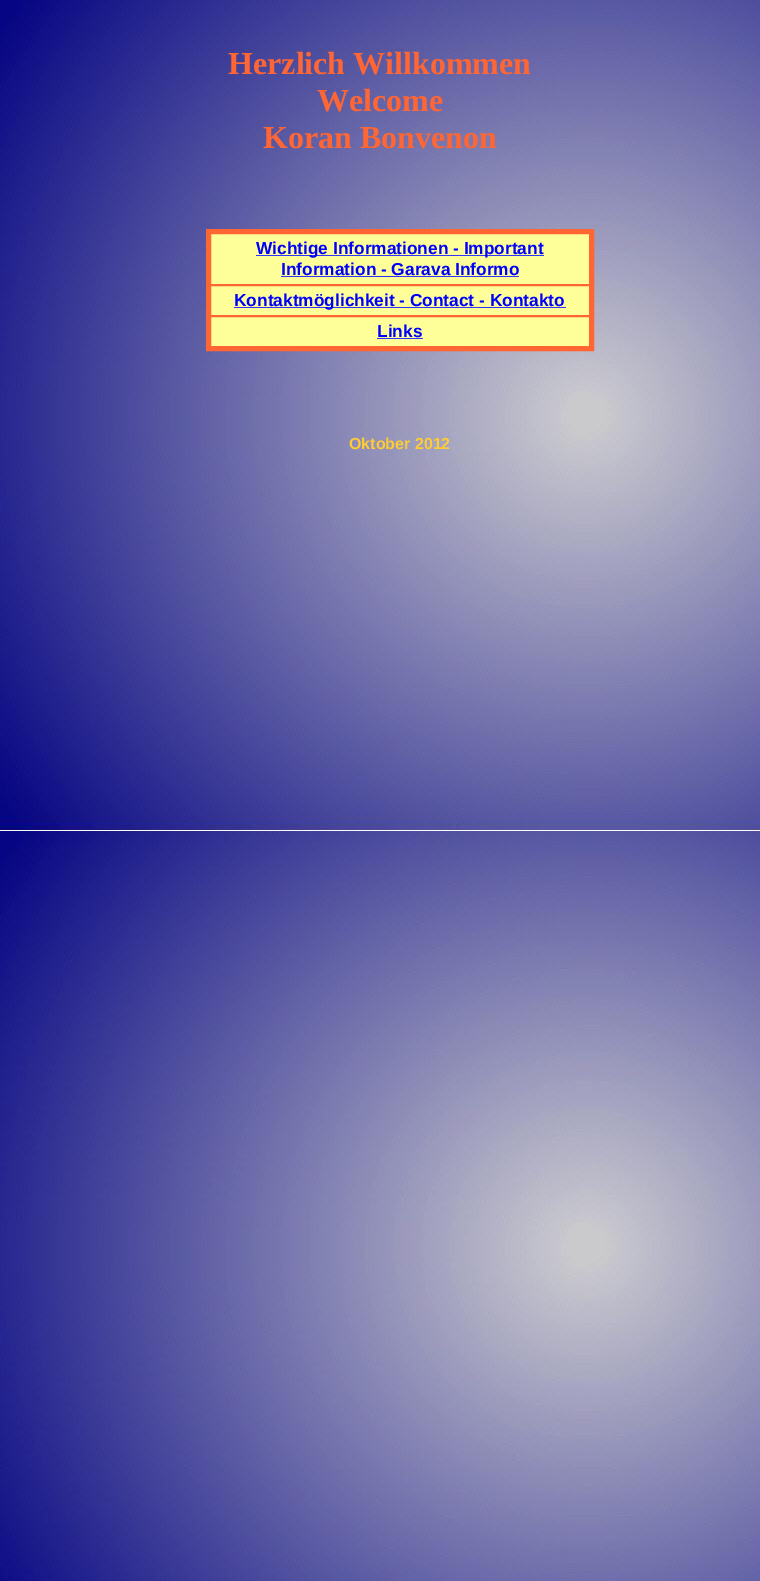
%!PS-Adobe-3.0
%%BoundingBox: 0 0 760 1581
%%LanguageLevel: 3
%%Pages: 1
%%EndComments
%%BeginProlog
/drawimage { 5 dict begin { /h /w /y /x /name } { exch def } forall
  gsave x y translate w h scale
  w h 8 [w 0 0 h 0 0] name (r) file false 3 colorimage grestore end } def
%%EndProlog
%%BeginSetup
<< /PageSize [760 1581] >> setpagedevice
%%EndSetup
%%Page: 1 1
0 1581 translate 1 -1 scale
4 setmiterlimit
1 setgray
0 0 760 1581 rectfill
(images/1.raw) 0 0 760 1581 drawimage
1 0.4 0.2 setrgbcolor
4 setlinewidth
208 231 384 118 rectstroke
1 1 0.6 setrgbcolor
newpath 210.5 233.5 moveto 589.5 233.5 lineto 589.5 284.5 lineto 210.5 284.5 lineto closepath gsave fill grestore
1 0.4 0.2 setrgbcolor
1 setlinewidth
stroke
0.2 0.2 1 setrgbcolor
256 255 288 1 rectfill
281 276 238 1 rectfill
1 1 0.6 setrgbcolor
newpath 210.5 285.5 moveto 589.5 285.5 lineto 589.5 315.5 lineto 210.5 315.5 lineto closepath gsave fill grestore
1 0.4 0.2 setrgbcolor
stroke
0.2 0.2 1 setrgbcolor
234 307 332 1 rectfill
1 1 0.6 setrgbcolor
newpath 210.5 316.5 moveto 589.5 316.5 lineto 589.5 346.5 lineto 210.5 346.5 lineto closepath gsave fill grestore
1 0.4 0.2 setrgbcolor
stroke
0.2 0.2 1 setrgbcolor
377 338 46 1 rectfill
/LiberationSerif-Bold [32 0 0 -32 0 0] selectfont
1 0.4 0.2 setrgbcolor
228 74 moveto (Herzlich Willkommen) show
317 111 moveto (Welcome) show
263 148 moveto (Koran Bonvenon) show
/LiberationSans-Bold [17.3 0 0 -17.3 0 0] selectfont
0 0 1 setrgbcolor
256 254 moveto (Wichtige Informationen - Important) show
281 275 moveto (Information - Garava Informo) show
234 306 moveto (Kontaktmöglichkeit - Contact - Kontakto) show
377 337 moveto (Links) show
/LiberationSans-Bold [16 0 0 -16 0 0] selectfont
1 0.8 0.2 setrgbcolor
349 449 moveto (Oktober 2012) show
showpage
%%EOF
